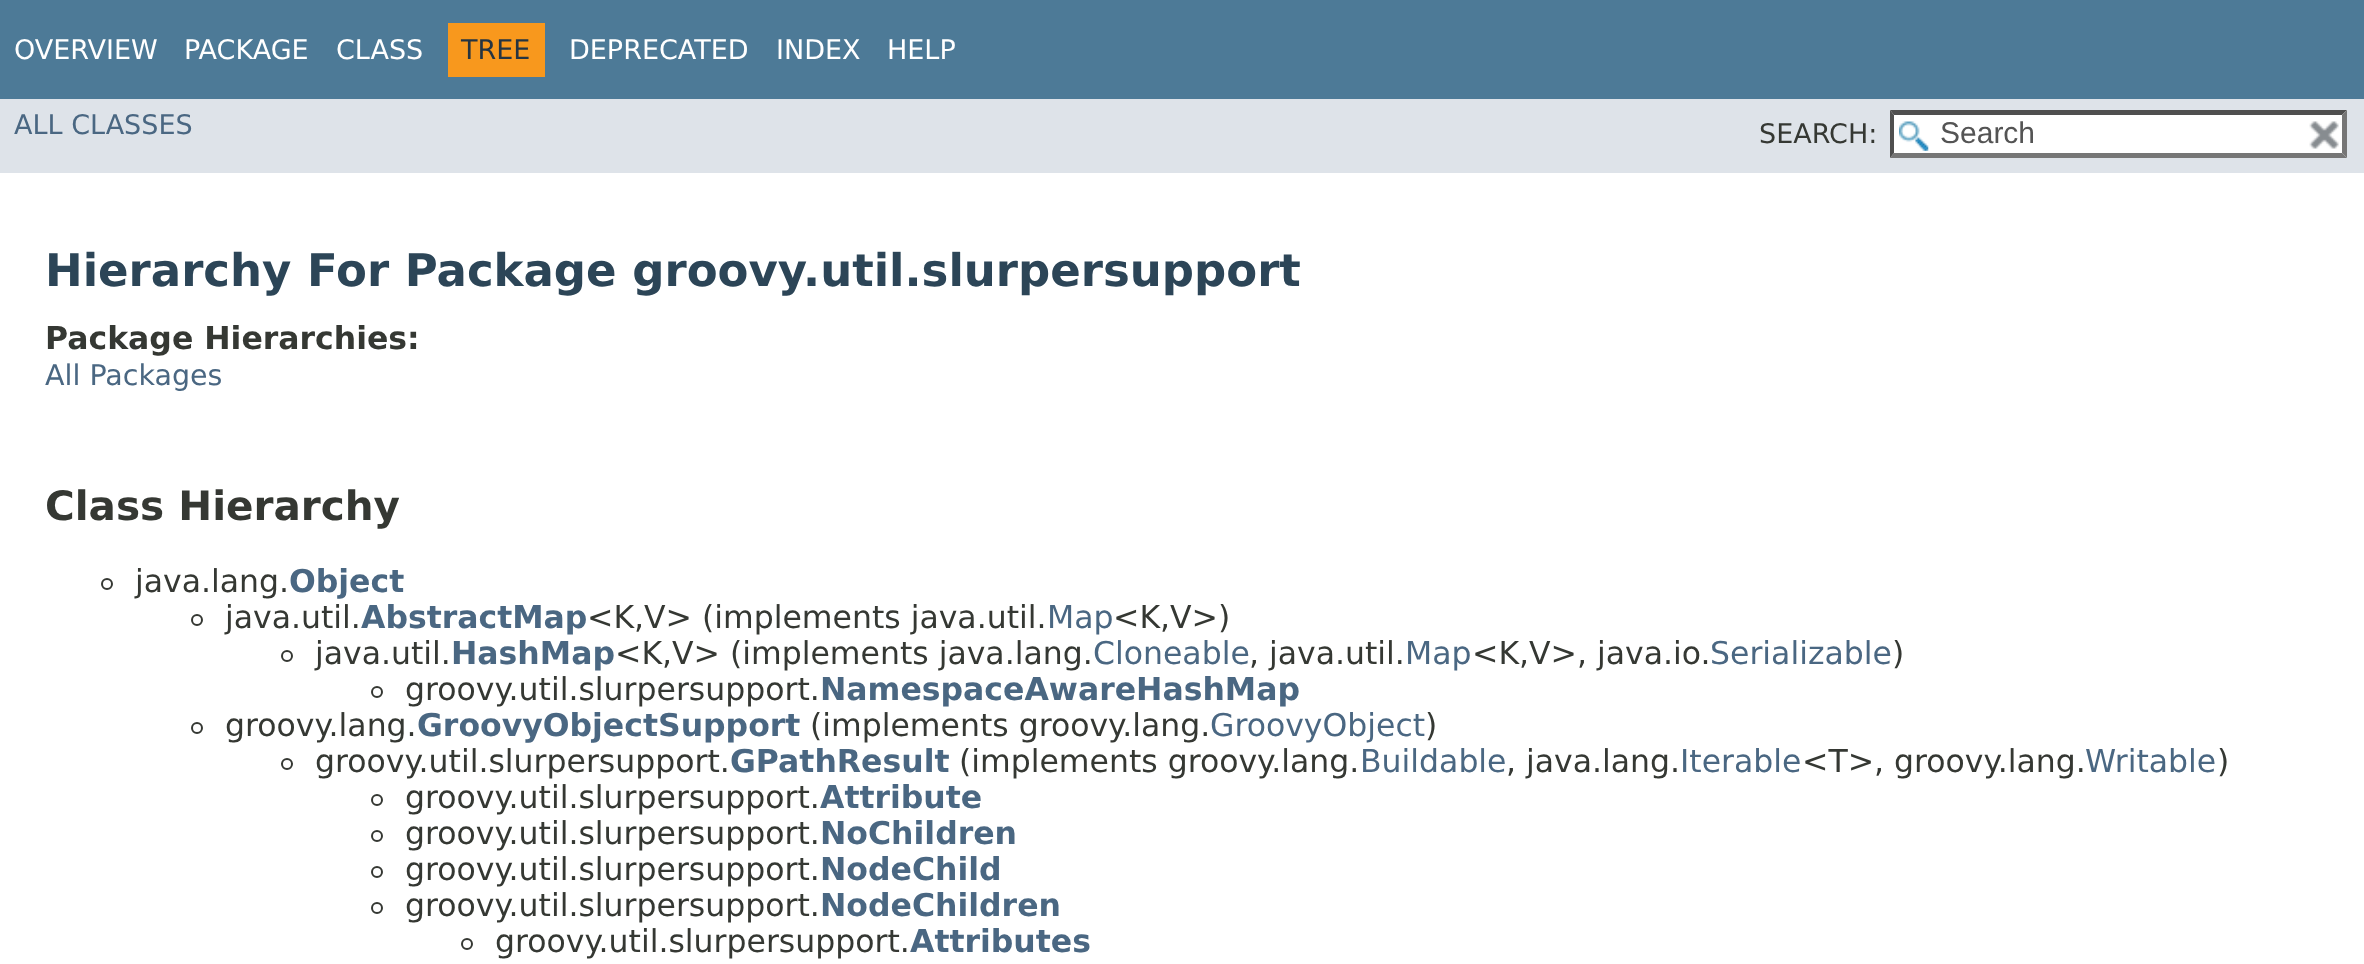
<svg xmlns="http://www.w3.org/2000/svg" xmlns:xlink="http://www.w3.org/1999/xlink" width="2364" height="964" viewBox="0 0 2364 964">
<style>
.cls-1{font:27px DejaVu Sans;fill:#ffffff}
.cls-2{font:27px DejaVu Sans;fill:#253441}
.cls-3{font:27px DejaVu Sans;fill:#4a6782}
.cls-4{font:27px DejaVu Sans;fill:#353833}
.cls-5{font:30px Liberation Sans;fill:#545454}
.cls-6{font:bold 45px DejaVu Sans;fill:#2c4557}
.cls-7{font:bold 31.5px DejaVu Sans;fill:#353833}
.cls-8{font:28.5px DejaVu Sans;fill:#4a6782}
.cls-9{font:bold 40.5px DejaVu Sans;fill:#353833}
.cls-10{font:31.5px DejaVu Sans;fill:#353833}
.cls-11{font:bold 31.5px DejaVu Sans;fill:#4a6782}
.cls-12{font:31.5px DejaVu Sans;fill:#4a6782}
</style>
<rect width="100%" height="100%" fill="#ffffff"/>
<rect fill="#4d7a97" x="0" y="0" width="2364" height="99"/>
<rect fill="#f8981d" x="448" y="23" width="97" height="54"/>
<rect fill="#dee3e9" x="0" y="99" width="2364" height="74"/>
<rect fill="#ffffff" x="1890" y="110" width="457" height="48"/>
<image xlink:href="image0.png" x="1899" y="121" width="30" height="30"/>
<path fill="#4f4f4f" d="M1890 110H2347L2342 115H1894Z"/>
<path fill="#767676" d="M2347 110V158L2342 153V115Z"/>
<path fill="#767676" d="M2347 158H1890L1894 153H2342Z"/>
<path fill="#4f4f4f" d="M1890 158V110L1894 115V153Z"/>
<image xlink:href="image1.png" x="2309" y="121" width="30" height="28"/>
<circle fill="none" stroke="#353833" stroke-width="2" cx="107" cy="584" r="5"/>
<circle fill="none" stroke="#353833" stroke-width="2" cx="197" cy="620" r="5"/>
<circle fill="none" stroke="#353833" stroke-width="2" cx="287" cy="656" r="5"/>
<circle fill="none" stroke="#353833" stroke-width="2" cx="377" cy="692" r="5"/>
<circle fill="none" stroke="#353833" stroke-width="2" cx="197" cy="728" r="5"/>
<circle fill="none" stroke="#353833" stroke-width="2" cx="287" cy="764" r="5"/>
<circle fill="none" stroke="#353833" stroke-width="2" cx="377" cy="800" r="5"/>
<circle fill="none" stroke="#353833" stroke-width="2" cx="377" cy="836" r="5"/>
<circle fill="none" stroke="#353833" stroke-width="2" cx="377" cy="872" r="5"/>
<circle fill="none" stroke="#353833" stroke-width="2" cx="377" cy="908" r="5"/>
<circle fill="none" stroke="#353833" stroke-width="2" cx="467" cy="944" r="5"/>
<text class="cls-1" x="14" y="59">OVERVIEW</text>
<text class="cls-1" x="184" y="59">PACKAGE</text>
<text class="cls-1" x="336" y="59">CLASS</text>
<text class="cls-2" x="461" y="59">TREE</text>
<text class="cls-1" x="569" y="59">DEPRECATED</text>
<text class="cls-1" x="776" y="59">INDEX</text>
<text class="cls-1" x="887" y="59">HELP</text>
<text class="cls-3" x="14" y="134">ALL CLASSES</text>
<text class="cls-4" x="1759" y="143">SEARCH:</text>
<text class="cls-5" x="1940" y="143">Search</text>
<text class="cls-6" x="45" y="286">Hierarchy For Package groovy.util.slurpersupport</text>
<text class="cls-7" x="45" y="349">Package Hierarchies:</text>
<text class="cls-8" x="45" y="385">All Packages</text>
<text class="cls-9" x="45" y="520">Class Hierarchy</text>
<text class="cls-10" x="135" y="592">java.lang.</text>
<text class="cls-11" x="289" y="592">Object</text>
<text class="cls-10" x="225" y="628">java.util.</text>
<text class="cls-11" x="361" y="628">AbstractMap</text>
<text class="cls-10" x="587" y="628">&lt;K,V&gt; (implements java.util.</text>
<text class="cls-12" x="1047" y="628">Map</text>
<text class="cls-10" x="1113" y="628">&lt;K,V&gt;)</text>
<text class="cls-10" x="315" y="664">java.util.</text>
<text class="cls-11" x="451" y="664">HashMap</text>
<text class="cls-10" x="615" y="664">&lt;K,V&gt; (implements java.lang.</text>
<text class="cls-12" x="1093" y="664">Cloneable</text>
<text class="cls-10" x="1249" y="664">, java.util.</text>
<text class="cls-12" x="1405" y="664">Map</text>
<text class="cls-10" x="1472" y="664">&lt;K,V&gt;, java.io.</text>
<text class="cls-12" x="1710" y="664">Serializable</text>
<text class="cls-10" x="1892" y="664">)</text>
<text class="cls-10" x="405" y="700">groovy.util.slurpersupport.</text>
<text class="cls-11" x="820" y="700">NamespaceAwareHashMap</text>
<text class="cls-10" x="225" y="736">groovy.lang.</text>
<text class="cls-11" x="417" y="736">GroovyObjectSupport</text>
<text class="cls-10" x="810" y="736">(implements groovy.lang.</text>
<text class="cls-12" x="1210" y="736">GroovyObject</text>
<text class="cls-10" x="1425" y="736">)</text>
<text class="cls-10" x="315" y="772">groovy.util.slurpersupport.</text>
<text class="cls-11" x="730" y="772">GPathResult</text>
<text class="cls-10" x="959" y="772">(implements groovy.lang.</text>
<text class="cls-12" x="1360" y="772">Buildable</text>
<text class="cls-10" x="1506" y="772">, java.lang.</text>
<text class="cls-12" x="1680" y="772">Iterable</text>
<text class="cls-10" x="1802" y="772">&lt;T&gt;, groovy.lang.</text>
<text class="cls-12" x="2085" y="772">Writable</text>
<text class="cls-10" x="2217" y="772">)</text>
<text class="cls-10" x="405" y="808">groovy.util.slurpersupport.</text>
<text class="cls-11" x="820" y="808">Attribute</text>
<text class="cls-10" x="405" y="844">groovy.util.slurpersupport.</text>
<text class="cls-11" x="820" y="844">NoChildren</text>
<text class="cls-10" x="405" y="880">groovy.util.slurpersupport.</text>
<text class="cls-11" x="820" y="880">NodeChild</text>
<text class="cls-10" x="405" y="916">groovy.util.slurpersupport.</text>
<text class="cls-11" x="820" y="916">NodeChildren</text>
<text class="cls-10" x="495" y="952">groovy.util.slurpersupport.</text>
<text class="cls-11" x="910" y="952">Attributes</text>
</svg>
